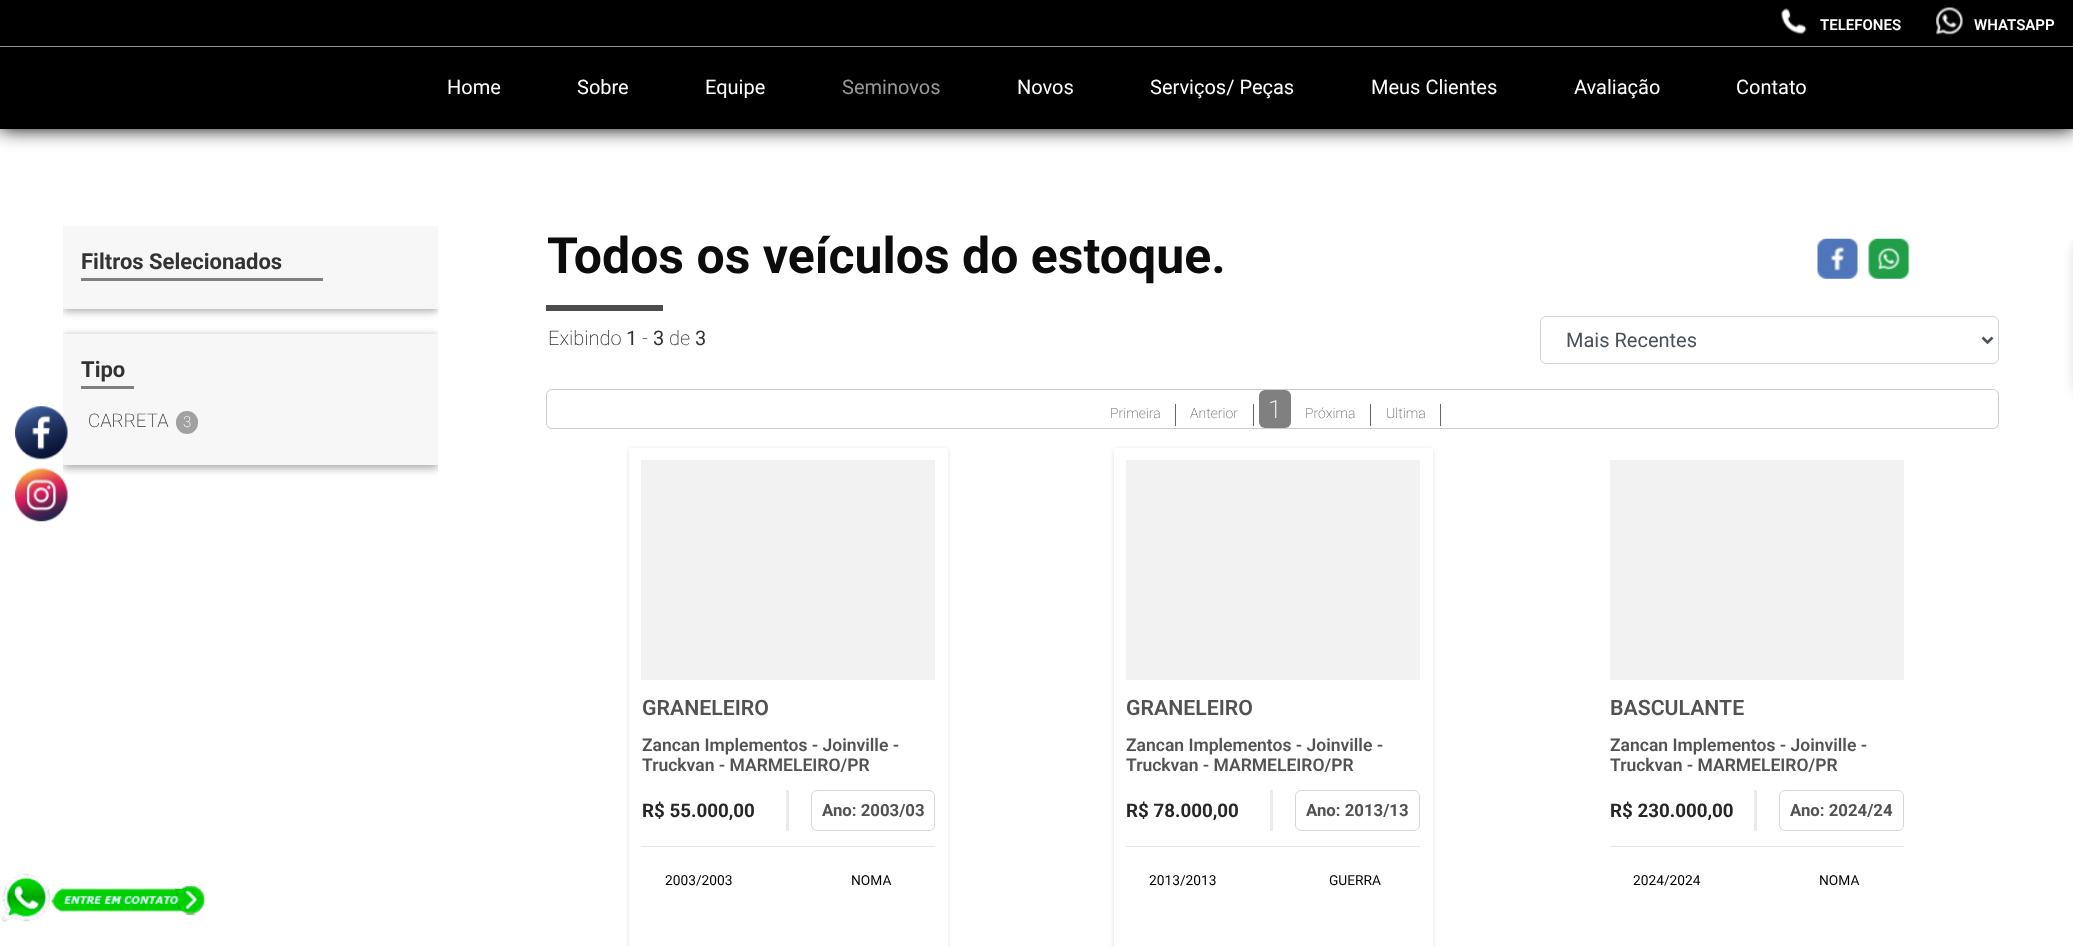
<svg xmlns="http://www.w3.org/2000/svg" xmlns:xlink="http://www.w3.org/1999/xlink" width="2073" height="947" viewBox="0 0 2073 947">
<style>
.cls-1{font:600 15px Roboto;fill:#ffffff}
.cls-2{font:20px Roboto;fill:#ffffff}
.cls-3{font:20px Roboto;fill:#999999}
.cls-4{font:bold 22px Roboto;fill:#333333}
.cls-5{font:200 18.75px Roboto;fill:#333333}
.cls-6{font:200 15px Roboto;fill:#ffffff}
.cls-7{font:bold 50px Roboto;fill:#0c0c0c}
.cls-8{font:200 20px Roboto;fill:#333333}
.cls-9{font:20px Roboto;fill:#333333}
.cls-10{font:20px Roboto;fill:#495057}
.cls-11{font:200 14px Roboto;fill:#666666}
.cls-12{font:200 25px Roboto;fill:#ffffff}
.cls-13{font:600 21.25px Roboto;fill:#535252}
.cls-14{font:600 17.5px Roboto;fill:#535252}
.cls-15{font:bold 18.75px Roboto;fill:#262626}
.cls-16{font:bold 16.75px Roboto;fill:#535252}
.cls-17{font:13.75px Roboto;fill:#000000}
</style>
<defs>
<clipPath id="clip1"><rect x="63" y="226" width="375" height="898"/></clipPath>
</defs>
<rect width="100%" height="100%" fill="#ffffff"/>
<rect fill="#000000" filter="blur(9.5px)" x="0" y="0" width="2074" height="129"/>
<rect fill="#000000" x="0" y="0" width="2073" height="129"/>
<rect fill="#959595" x="0" y="46" width="2073" height="1"/>
<image xlink:href="image0.png" x="1781" y="8" width="26" height="27"/>
<image xlink:href="image1.png" x="1936" y="7" width="27" height="28"/>
<g clip-path="url(#clip1)">
<rect fill="#000000" fill-opacity="0.35" filter="blur(4px)" x="63" y="336" width="375" height="132"/>
</g>
<rect fill="#f7f7f7" x="63" y="334" width="375" height="131"/>
<image xlink:href="image2.png" x="15" y="406" width="53" height="54"/>
<image xlink:href="image3.png" x="15" y="468" width="53" height="54"/>
<g clip-path="url(#clip1)">
<rect fill="#000000" fill-opacity="0.35" filter="blur(4px)" x="63" y="229" width="375" height="82"/>
</g>
<rect fill="#f7f7f7" x="63" y="226" width="375" height="83"/>
<rect fill="#808080" x="81" y="278" width="242" height="3"/>
<rect fill="#808080" x="81" y="386" width="53" height="3"/>
<rect fill="#a1a1a1" x="176" y="411" width="22" height="23" rx="11"/>
<image xlink:href="image4.png" x="1817" y="238" width="41" height="41"/>
<image xlink:href="image5.png" x="1868" y="238" width="42" height="41"/>
<rect fill="#4c4c4c" x="546" y="305" width="117" height="6"/>
<rect fill="none" stroke="#ced4da" x="1540.5" y="316.5" width="458" height="47" rx="5.5"/>
<path fill="none" stroke="#495057" stroke-width="2.5" d="M1982.5 337.5L1987.5 342.5L1992.5 337.5"/>
<rect fill="none" stroke="#cccccc" x="546.5" y="389.5" width="1452" height="39" rx="5.5"/>
<rect fill="#666666" x="1175" y="404" width="1" height="22"/>
<rect fill="#666666" x="1253" y="404" width="1" height="22"/>
<rect fill="#808080" x="1259" y="390" width="32" height="38" rx="6"/>
<rect fill="#666666" x="1370" y="404" width="1" height="22"/>
<rect fill="#666666" x="1440" y="404" width="1" height="22"/>
<rect fill="#000000" fill-opacity="0.12" filter="blur(2px)" x="629" y="449" width="319" height="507" rx="2.5"/>
<rect fill="#ffffff" x="629" y="448" width="319" height="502" rx="2.5"/>
<rect fill="#f2f2f2" x="641" y="460" width="294" height="220"/>
<rect fill="#ecebeb" x="786" y="790" width="3" height="41"/>
<rect fill="none" stroke="#d7d7d7" x="811.5" y="790.5" width="123" height="40" rx="5.5"/>
<rect fill="#e6e6e6" x="641" y="846" width="294" height="1"/>
<rect fill="#000000" fill-opacity="0.12" filter="blur(2px)" x="1114" y="449" width="319" height="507" rx="2.5"/>
<rect fill="#ffffff" x="1114" y="448" width="319" height="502" rx="2.5"/>
<rect fill="#f2f2f2" x="1126" y="460" width="294" height="220"/>
<rect fill="#ecebeb" x="1270" y="790" width="3" height="41"/>
<rect fill="none" stroke="#d7d7d7" x="1295.5" y="790.5" width="124" height="40" rx="5.5"/>
<rect fill="#e6e6e6" x="1126" y="846" width="294" height="1"/>
<rect fill="#f2f2f2" x="1610" y="460" width="294" height="220"/>
<rect fill="#ecebeb" x="1754" y="790" width="3" height="41"/>
<rect fill="none" stroke="#d7d7d7" x="1779.5" y="790.5" width="124" height="40" rx="5.5"/>
<rect fill="#e6e6e6" x="1610" y="846" width="294" height="1"/>
<rect fill="#000000" fill-opacity="0.15" filter="blur(6px)" x="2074" y="240" width="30" height="156" rx="13"/>
<image xlink:href="image6.png" x="1" y="873" width="205" height="49"/>
<text class="cls-1" x="1820" y="30">TELEFONES</text>
<text class="cls-1" x="1974" y="30">WHATSAPP</text>
<text class="cls-2" x="447" y="94">Home</text>
<text class="cls-2" x="577" y="94">Sobre</text>
<text class="cls-2" x="705" y="94">Equipe</text>
<text class="cls-3" x="842" y="94">Seminovos</text>
<text class="cls-2" x="1017" y="94">Novos</text>
<text class="cls-2" x="1150" y="94">Serviços/ Peças</text>
<text class="cls-2" x="1371" y="94">Meus Clientes</text>
<text class="cls-2" x="1574" y="94">Avaliação</text>
<text class="cls-2" x="1736" y="94">Contato</text>
<text class="cls-4" x="81" y="269">Filtros Selecionados</text>
<text class="cls-4" x="81" y="377">Tipo</text>
<text class="cls-5" x="88" y="427">CARRETA</text>
<text class="cls-6" x="183" y="427">3</text>
<text class="cls-7" x="547" y="273">Todos os veículos do estoque.</text>
<text class="cls-8" x="548" y="345">Exibindo</text>
<text class="cls-9" x="626" y="345">1</text>
<text class="cls-8" x="642" y="345">-</text>
<text class="cls-9" x="653" y="345">3</text>
<text class="cls-8" x="669" y="345">de</text>
<text class="cls-9" x="695" y="345">3</text>
<text class="cls-10" x="1566" y="347">Mais Recentes</text>
<text class="cls-11" x="1110" y="418">Primeira</text>
<text class="cls-11" x="1190" y="418">Anterior</text>
<text class="cls-12" x="1268" y="418">1</text>
<text class="cls-11" x="1305" y="418">Próxima</text>
<text class="cls-11" x="1386" y="418">Ultima</text>
<text class="cls-13" x="642" y="715">GRANELEIRO</text>
<text class="cls-14"><tspan x="642" y="751">Zancan Implementos - Joinville -</tspan><tspan x="642" y="771">Truckvan - MARMELEIRO/PR</tspan></text>
<text class="cls-15" x="642" y="817">R$ 55.000,00</text>
<text class="cls-16" x="822" y="816">Ano: 2003/03</text>
<text class="cls-17" x="665" y="885">2003/2003</text>
<text class="cls-17" x="851" y="885">NOMA</text>
<text class="cls-13" x="1126" y="715">GRANELEIRO</text>
<text class="cls-14"><tspan x="1126" y="751">Zancan Implementos - Joinville -</tspan><tspan x="1126" y="771">Truckvan - MARMELEIRO/PR</tspan></text>
<text class="cls-15" x="1126" y="817">R$ 78.000,00</text>
<text class="cls-16" x="1306" y="816">Ano: 2013/13</text>
<text class="cls-17" x="1149" y="885">2013/2013</text>
<text class="cls-17" x="1329" y="885">GUERRA</text>
<text class="cls-13" x="1610" y="715">BASCULANTE</text>
<text class="cls-14"><tspan x="1610" y="751">Zancan Implementos - Joinville -</tspan><tspan x="1610" y="771">Truckvan - MARMELEIRO/PR</tspan></text>
<text class="cls-15" x="1610" y="817">R$ 230.000,00</text>
<text class="cls-16" x="1790" y="816">Ano: 2024/24</text>
<text class="cls-17" x="1633" y="885">2024/2024</text>
<text class="cls-17" x="1819" y="885">NOMA</text>
</svg>
